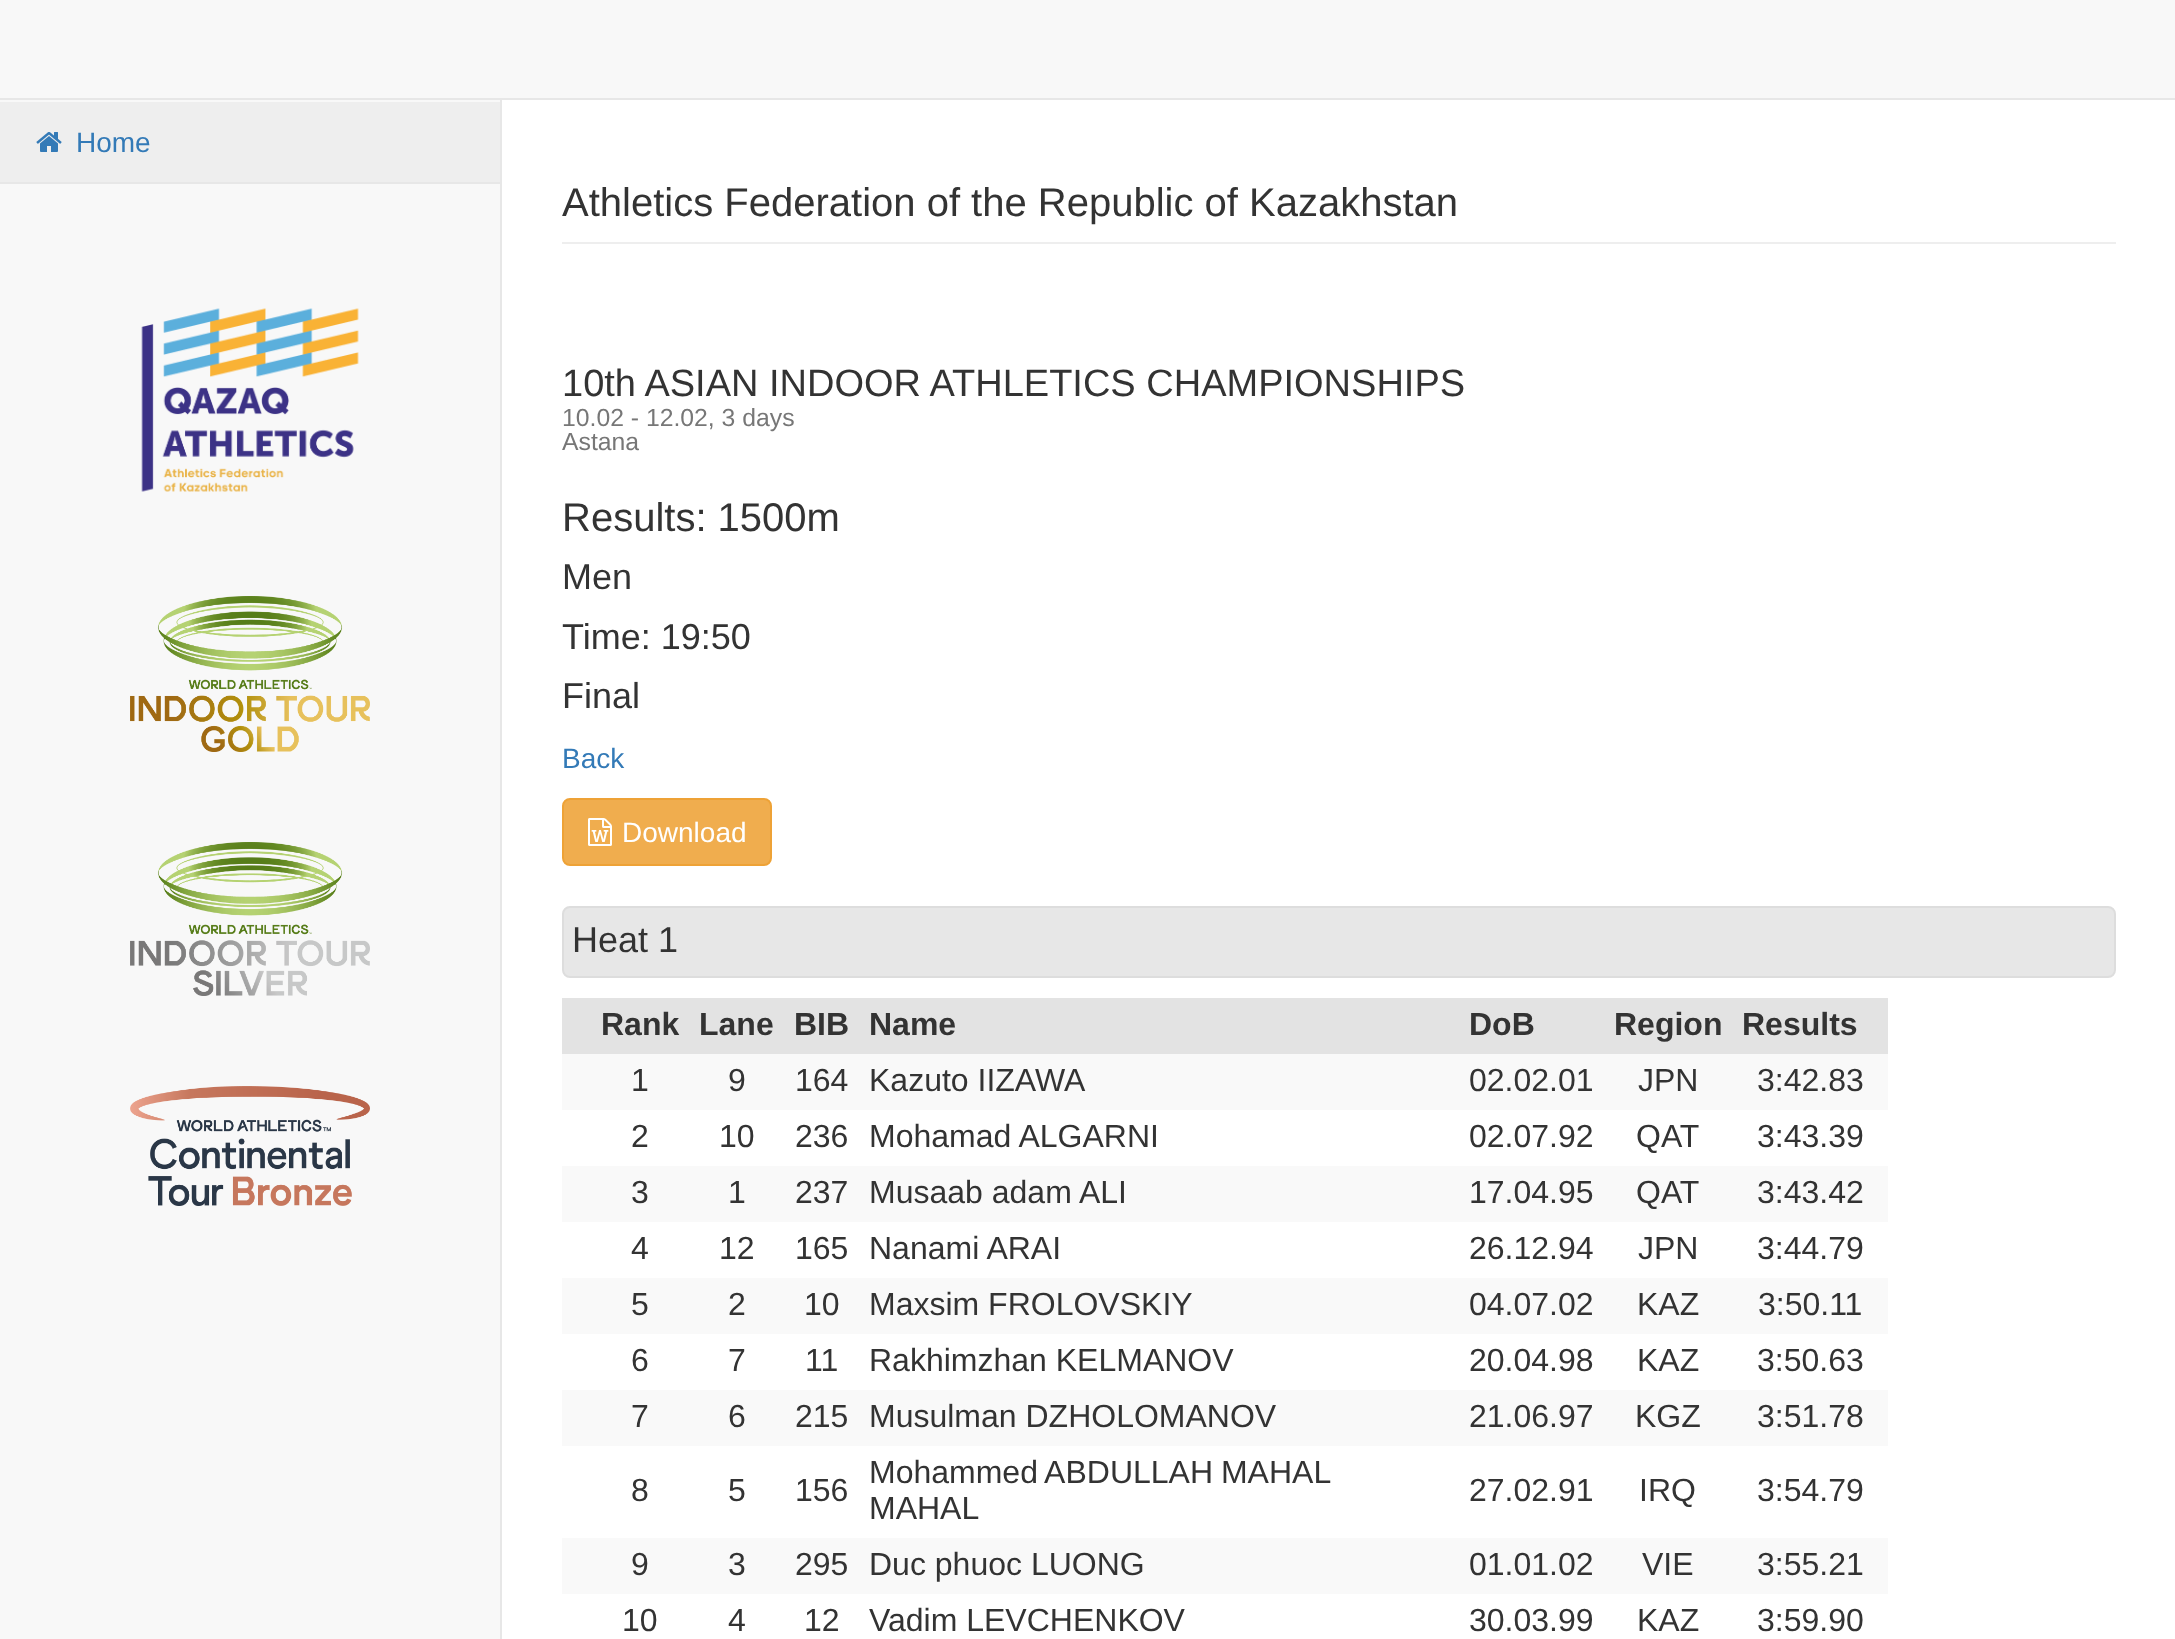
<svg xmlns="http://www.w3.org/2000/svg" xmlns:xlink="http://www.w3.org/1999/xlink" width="2175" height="1639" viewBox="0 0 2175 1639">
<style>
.cls-1{font:28px Liberation Sans;fill:#337ab7}
.cls-2{font:40px Liberation Sans;fill:#333333}
.cls-3{font:38px Liberation Sans;fill:#333333}
.cls-4{font:24.75px Liberation Sans;fill:#777777}
.cls-5{font:36px Liberation Sans;fill:#333333}
.cls-6{font:28px Liberation Sans;fill:#ffffff}
.cls-7{font:bold 32px Liberation Sans;fill:#333333}
.cls-8{font:32px Liberation Sans;fill:#333333}
</style>
<rect width="100%" height="100%" fill="#f8f8f8"/>
<rect fill="#e7e7e7" x="0" y="98" width="2175" height="2"/>
<rect fill="#e7e7e7" x="0" y="182" width="500" height="2"/>
<rect fill="#eeeeee" x="0" y="102" width="500" height="80"/>
<image xlink:href="image0.png" x="36" y="132" width="26" height="20"/>
<image xlink:href="image1.png" x="141" y="308" width="218" height="184"/>
<image xlink:href="image2.png" x="130" y="596" width="240" height="156"/>
<image xlink:href="image3.png" x="130" y="842" width="240" height="154"/>
<image xlink:href="image4.png" x="130" y="1086" width="240" height="120"/>
<rect fill="#ffffff" x="502" y="100" width="1673" height="1539"/>
<rect fill="#e7e7e7" x="500" y="100" width="2" height="1539"/>
<rect fill="#eeeeee" x="562" y="242" width="1554" height="2"/>
<rect fill="#f0ad4e" stroke="#eea236" stroke-width="2" x="563" y="799" width="208" height="66" rx="7"/>
<image xlink:href="image5.png" x="588" y="818" width="24" height="28"/>
<rect fill="#e7e7e7" stroke="#dddddd" stroke-width="2" x="563" y="907" width="1552" height="70" rx="7"/>
<rect fill="#e3e3e3" x="562" y="998" width="1326" height="56"/>
<rect fill="#f9f9f9" x="562" y="1054" width="1326" height="56"/>
<rect fill="#f9f9f9" x="562" y="1166" width="1326" height="56"/>
<rect fill="#f9f9f9" x="562" y="1278" width="1326" height="56"/>
<rect fill="#f9f9f9" x="562" y="1390" width="1326" height="56"/>
<rect fill="#f9f9f9" x="562" y="1538" width="1326" height="56"/>
<text class="cls-1" x="76" y="152">Home</text>
<text class="cls-2" x="562" y="216">Athletics Federation of the Republic of Kazakhstan</text>
<text class="cls-3" x="562" y="396">10th ASIAN INDOOR ATHLETICS CHAMPIONSHIPS</text>
<text class="cls-4"><tspan x="562" y="426">10.02 - 12.02, 3 days</tspan><tspan x="562" y="450">Astana</tspan></text>
<text class="cls-2" x="562" y="531">Results: 1500m</text>
<text class="cls-5"><tspan x="562" y="589">Men</tspan><tspan x="562" y="649">Time: 19:50</tspan><tspan x="562" y="708">Final</tspan></text>
<text class="cls-1" x="562" y="768">Back</text>
<text class="cls-6" x="622" y="842">Download</text>
<text class="cls-5" x="572" y="952">Heat 1</text>
<text class="cls-7" x="601" y="1035">Rank</text>
<text class="cls-7" x="699" y="1035">Lane</text>
<text class="cls-7" x="794" y="1035">BIB</text>
<text class="cls-7" x="869" y="1035">Name</text>
<text class="cls-7" x="1469" y="1035">DoB</text>
<text class="cls-7" x="1614" y="1035">Region</text>
<text class="cls-7" x="1742" y="1035">Results</text>
<text class="cls-8" x="631" y="1091">1</text>
<text class="cls-8" x="728" y="1091">9</text>
<text class="cls-8" x="795" y="1091">164</text>
<text class="cls-8" x="869" y="1091">Kazuto IIZAWA</text>
<text class="cls-8" x="1469" y="1091">02.02.01</text>
<text class="cls-8" x="1638" y="1091">JPN</text>
<text class="cls-8" x="1757" y="1091">3:42.83</text>
<text class="cls-8" x="631" y="1147">2</text>
<text class="cls-8" x="719" y="1147">10</text>
<text class="cls-8" x="795" y="1147">236</text>
<text class="cls-8" x="869" y="1147">Mohamad ALGARNI</text>
<text class="cls-8" x="1469" y="1147">02.07.92</text>
<text class="cls-8" x="1636" y="1147">QAT</text>
<text class="cls-8" x="1757" y="1147">3:43.39</text>
<text class="cls-8" x="631" y="1203">3</text>
<text class="cls-8" x="728" y="1203">1</text>
<text class="cls-8" x="795" y="1203">237</text>
<text class="cls-8" x="869" y="1203">Musaab adam ALI</text>
<text class="cls-8" x="1469" y="1203">17.04.95</text>
<text class="cls-8" x="1636" y="1203">QAT</text>
<text class="cls-8" x="1757" y="1203">3:43.42</text>
<text class="cls-8" x="631" y="1259">4</text>
<text class="cls-8" x="719" y="1259">12</text>
<text class="cls-8" x="795" y="1259">165</text>
<text class="cls-8" x="869" y="1259">Nanami ARAI</text>
<text class="cls-8" x="1469" y="1259">26.12.94</text>
<text class="cls-8" x="1638" y="1259">JPN</text>
<text class="cls-8" x="1757" y="1259">3:44.79</text>
<text class="cls-8" x="631" y="1315">5</text>
<text class="cls-8" x="728" y="1315">2</text>
<text class="cls-8" x="804" y="1315">10</text>
<text class="cls-8" x="869" y="1315">Maxsim FROLOVSKIY</text>
<text class="cls-8" x="1469" y="1315">04.07.02</text>
<text class="cls-8" x="1637" y="1315">KAZ</text>
<text class="cls-8" x="1758" y="1315">3:50.11</text>
<text class="cls-8" x="631" y="1371">6</text>
<text class="cls-8" x="728" y="1371">7</text>
<text class="cls-8" x="805" y="1371">11</text>
<text class="cls-8" x="869" y="1371">Rakhimzhan KELMANOV</text>
<text class="cls-8" x="1469" y="1371">20.04.98</text>
<text class="cls-8" x="1637" y="1371">KAZ</text>
<text class="cls-8" x="1757" y="1371">3:50.63</text>
<text class="cls-8" x="631" y="1427">7</text>
<text class="cls-8" x="728" y="1427">6</text>
<text class="cls-8" x="795" y="1427">215</text>
<text class="cls-8" x="869" y="1427">Musulman DZHOLOMANOV</text>
<text class="cls-8" x="1469" y="1427">21.06.97</text>
<text class="cls-8" x="1635" y="1427">KGZ</text>
<text class="cls-8" x="1757" y="1427">3:51.78</text>
<text class="cls-8" x="631" y="1501">8</text>
<text class="cls-8" x="728" y="1501">5</text>
<text class="cls-8" x="795" y="1501">156</text>
<text class="cls-8"><tspan x="869" y="1483" word-spacing="-1">Mohammed ABDULLAH MAHAL</tspan><tspan x="869" y="1519">MAHAL</tspan></text>
<text class="cls-8" x="1469" y="1501">27.02.91</text>
<text class="cls-8" x="1639" y="1501">IRQ</text>
<text class="cls-8" x="1757" y="1501">3:54.79</text>
<text class="cls-8" x="631" y="1575">9</text>
<text class="cls-8" x="728" y="1575">3</text>
<text class="cls-8" x="795" y="1575">295</text>
<text class="cls-8" x="869" y="1575">Duc phuoc LUONG</text>
<text class="cls-8" x="1469" y="1575">01.01.02</text>
<text class="cls-8" x="1642" y="1575">VIE</text>
<text class="cls-8" x="1757" y="1575">3:55.21</text>
<text class="cls-8" x="622" y="1631">10</text>
<text class="cls-8" x="728" y="1631">4</text>
<text class="cls-8" x="804" y="1631">12</text>
<text class="cls-8" x="869" y="1631">Vadim LEVCHENKOV</text>
<text class="cls-8" x="1469" y="1631">30.03.99</text>
<text class="cls-8" x="1637" y="1631">KAZ</text>
<text class="cls-8" x="1757" y="1631">3:59.90</text>
</svg>
